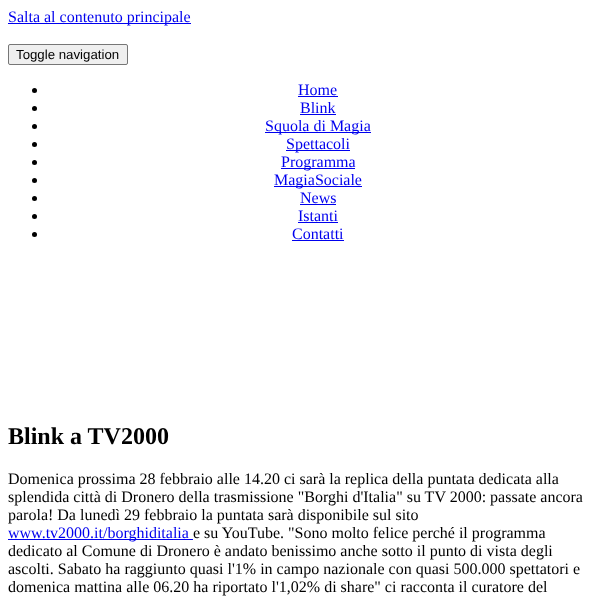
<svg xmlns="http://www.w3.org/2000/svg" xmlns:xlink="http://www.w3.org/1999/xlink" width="596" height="605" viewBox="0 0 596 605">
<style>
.cls-1{font:16px Liberation Serif;fill:#0000ee}
.cls-2{font:13.25px Liberation Sans;fill:#000000}
.cls-3{font:bold 24px Liberation Serif;fill:#000000}
.cls-4{font:16px Liberation Serif;fill:#000000}
</style>
<rect width="100%" height="100%" fill="#ffffff"/>
<rect fill="#0000ee" x="8" y="23" width="183" height="1"/>
<rect fill="#efefef" stroke="#767676" x="8.5" y="44.5" width="119" height="20" rx="1.5"/>
<circle fill="#000000" cx="34.5" cy="90.5" r="2.5"/>
<rect fill="#0000ee" x="298" y="96" width="40" height="1"/>
<circle fill="#000000" cx="34.5" cy="108.5" r="2.5"/>
<rect fill="#0000ee" x="300" y="114" width="36" height="1"/>
<circle fill="#000000" cx="34.5" cy="126.5" r="2.5"/>
<rect fill="#0000ee" x="265" y="132" width="106" height="1"/>
<circle fill="#000000" cx="34.5" cy="144.5" r="2.5"/>
<rect fill="#0000ee" x="286" y="150" width="64" height="1"/>
<circle fill="#000000" cx="34.5" cy="162.5" r="2.5"/>
<rect fill="#0000ee" x="281" y="168" width="74" height="1"/>
<circle fill="#000000" cx="34.5" cy="180.5" r="2.5"/>
<rect fill="#0000ee" x="274" y="186" width="88" height="1"/>
<circle fill="#000000" cx="34.5" cy="198.5" r="2.5"/>
<rect fill="#0000ee" x="300" y="204" width="36" height="1"/>
<circle fill="#000000" cx="34.5" cy="216.5" r="2.5"/>
<rect fill="#0000ee" x="298" y="222" width="40" height="1"/>
<circle fill="#000000" cx="34.5" cy="234.5" r="2.5"/>
<rect fill="#0000ee" x="292" y="240" width="52" height="1"/>
<rect fill="#0000ee" x="8" y="539" width="185" height="1"/>
<text class="cls-1" x="8" y="22">Salta al contenuto principale</text>
<text class="cls-2" x="16" y="59">Toggle navigation</text>
<text class="cls-1" x="298" y="95">Home</text>
<text class="cls-1" x="300" y="113">Blink</text>
<text class="cls-1" x="265" y="131">Squola di Magia</text>
<text class="cls-1" x="286" y="149">Spettacoli</text>
<text class="cls-1" x="281" y="167">Programma</text>
<text class="cls-1" x="274" y="185">MagiaSociale</text>
<text class="cls-1" x="300" y="203">News</text>
<text class="cls-1" x="298" y="221">Istanti</text>
<text class="cls-1" x="292" y="239">Contatti</text>
<text class="cls-3" x="8" y="444">Blink a TV2000</text>
<text class="cls-4"><tspan x="8" y="484">Domenica prossima 28 febbraio alle 14.20 ci sarà la replica della puntata dedicata alla</tspan><tspan x="8" y="502">splendida città di Dronero della trasmissione "Borghi d'Italia" su TV 2000: passate ancora</tspan><tspan x="8" y="520">parola! Da lunedì 29 febbraio la puntata sarà disponibile sul sito</tspan></text>
<text class="cls-1" x="8" y="538">www.tv2000.it/borghiditalia</text>
<text class="cls-4" x="193" y="538">e su YouTube. "Sono molto felice perché il programma</text>
<text class="cls-4"><tspan x="8" y="556">dedicato al Comune di Dronero è andato benissimo anche sotto il punto di vista degli</tspan><tspan x="8" y="574">ascolti. Sabato ha raggiunto quasi l'1% in campo nazionale con quasi 500.000 spettatori e</tspan><tspan x="8" y="592">domenica mattina alle 06.20 ha riportato l'1,02% di share" ci racconta il curatore del</tspan></text>
</svg>
